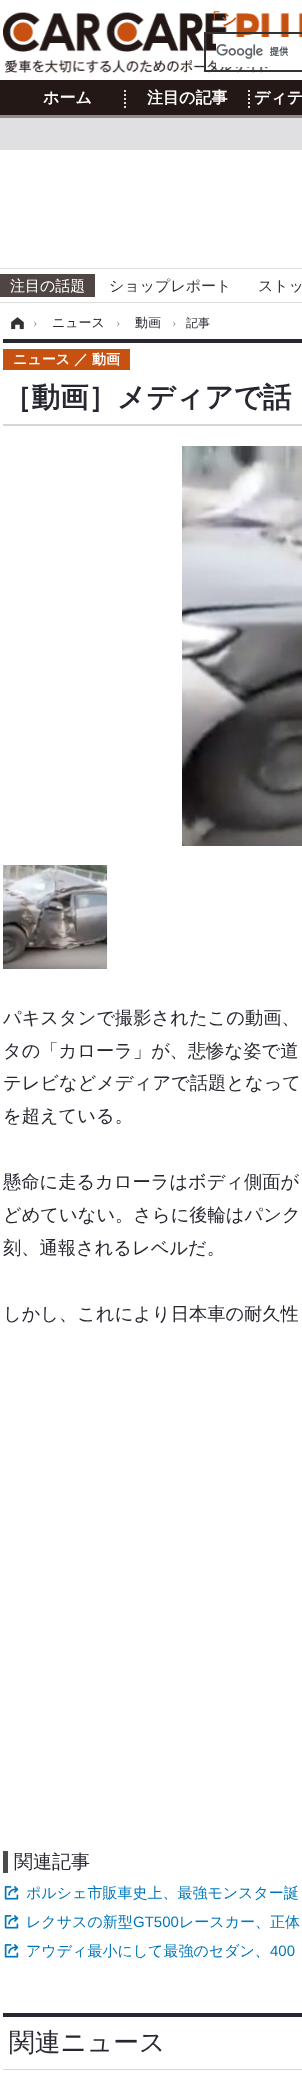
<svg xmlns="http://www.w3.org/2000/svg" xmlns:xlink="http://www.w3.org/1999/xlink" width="302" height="2075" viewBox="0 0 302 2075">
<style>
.cls-1{font:bold 16.5px WenQuanYi Zen Hei;fill:#c75111}
.cls-2{font:bold 16px WenQuanYi Zen Hei;fill:#ffffff}
.cls-3{font:500 15px WenQuanYi Zen Hei;fill:#ffffff}
.cls-4{font:500 15px WenQuanYi Zen Hei;fill:#333333}
.cls-5{font:13px Liberation Serif;fill:#999999}
.cls-6{font:500 13px WenQuanYi Zen Hei;fill:#262730}
.cls-7{font:500 12px WenQuanYi Zen Hei;fill:#262730}
.cls-8{font:bold 14px WenQuanYi Zen Hei;fill:#ffffff}
.cls-9{font:bold 28.5px WenQuanYi Zen Hei;fill:#262730}
.cls-10{font:500 18.25px WenQuanYi Zen Hei;fill:#262730}
.cls-11{font:500 19px WenQuanYi Zen Hei;fill:#262730}
.cls-12{font:500 15px WenQuanYi Zen Hei;fill:#0077b9}
.cls-13{font:15px Liberation Sans;fill:#0077b9}
.cls-14{font:500 25.75px WenQuanYi Zen Hei;fill:#262730}
</style>
<rect width="100%" height="100%" fill="#ffffff"/>
<image xlink:href="image1.png" x="3" y="12" width="299" height="61"/>
<rect fill="none" stroke="#333333" stroke-width="2" x="205" y="33" width="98" height="38"/>
<rect fill="#ffffff" x="216" y="37" width="86" height="30"/>
<image xlink:href="image0.png" x="216" y="44" width="73" height="15"/>
<image xlink:href="image2.png" x="0" y="80" width="302" height="70"/>
<path fill="none" stroke="#e0e0e2" stroke-width="2" stroke-dasharray="2 2" d="M125 90V108"/>
<path fill="none" stroke="#e0e0e2" stroke-width="2" stroke-dasharray="2 2" d="M249 90V108"/>
<rect fill="#dddddd" x="0" y="268" width="302" height="1"/>
<rect fill="#dddddd" x="0" y="302" width="302" height="1"/>
<rect fill="#4f4644" x="0" y="274" width="95" height="23"/>
<image xlink:href="image3.png" x="11" y="317" width="13" height="13"/>
<rect fill="#262730" x="3" y="339" width="299" height="4"/>
<rect fill="#d6d6d6" x="3" y="424" width="299" height="2"/>
<rect fill="#c75111" x="3" y="349" width="127" height="21"/>
<image xlink:href="image4.png" x="182" y="446" width="120" height="400"/>
<image xlink:href="image5.png" x="3" y="865" width="105" height="104"/>
<rect fill="#4c4c4c" x="3" y="1851" width="5" height="22"/>
<image xlink:href="image6.png" x="4" y="1886" width="15" height="14"/>
<image xlink:href="image6.png" x="4" y="1915" width="15" height="14"/>
<image xlink:href="image6.png" x="4" y="1944" width="15" height="14"/>
<rect fill="#262730" x="3" y="2013" width="299" height="4"/>
<rect fill="#d6d6d6" x="3" y="2069" width="299" height="1"/>
<text class="cls-1" x="204" y="25">「シ</text>
<text class="cls-2" x="43" y="103">ホーム</text>
<text class="cls-2" x="147" y="103">注目の記事</text>
<text class="cls-2" x="254" y="103">ディテ</text>
<text class="cls-3" x="10" y="291">注目の話題</text>
<text class="cls-4" x="109" y="291">ショップレポート</text>
<text class="cls-4" x="258" y="291">ストッ</text>
<text class="cls-5" x="33" y="327">›</text>
<text class="cls-6" x="52" y="327">ニュース</text>
<text class="cls-5" x="116" y="327">›</text>
<text class="cls-6" x="135" y="327">動画</text>
<text class="cls-5" x="172" y="327">›</text>
<text class="cls-7" x="186" y="327">記事</text>
<text class="cls-8" x="13" y="364">ニュース</text>
<text class="cls-8" x="74" y="364">／</text>
<text class="cls-8" x="92" y="364">動画</text>
<text class="cls-9" x="3" y="407">［動画］メディアで話</text>
<text class="cls-10"><tspan x="3" y="1024">パキスタンで撮影されたこの動画、</tspan><tspan x="3" y="1057">タの「カローラ」が、悲惨な姿で道</tspan><tspan x="3" y="1089">テレビなどメディアで話題となって</tspan><tspan x="3" y="1122">を超えている。</tspan></text>
<text class="cls-10"><tspan x="3" y="1188">懸命に走るカローラはボディ側面が</tspan><tspan x="3" y="1221">どめていない。さらに後輪はパンク</tspan><tspan x="3" y="1254">刻、通報されるレベルだ。</tspan></text>
<text class="cls-10" x="3" y="1320">しかし、これにより日本車の耐久性</text>
<text class="cls-11" x="14" y="1868">関連記事</text>
<text class="cls-12"><tspan x="26" y="1898">ポルシェ市販車史上、最強モンスター誕</tspan><tspan x="26" y="1927">レクサスの新型</tspan></text>
<text class="cls-13" x="133" y="1927">GT500</text>
<text class="cls-12" x="179" y="1927">レースカー、正体</text>
<text class="cls-12" x="26" y="1956">アウディ最小にして最強のセダン、</text>
<text class="cls-13" x="270" y="1956">400</text>
<text class="cls-14" x="9" y="2051">関連ニュース</text>
</svg>
